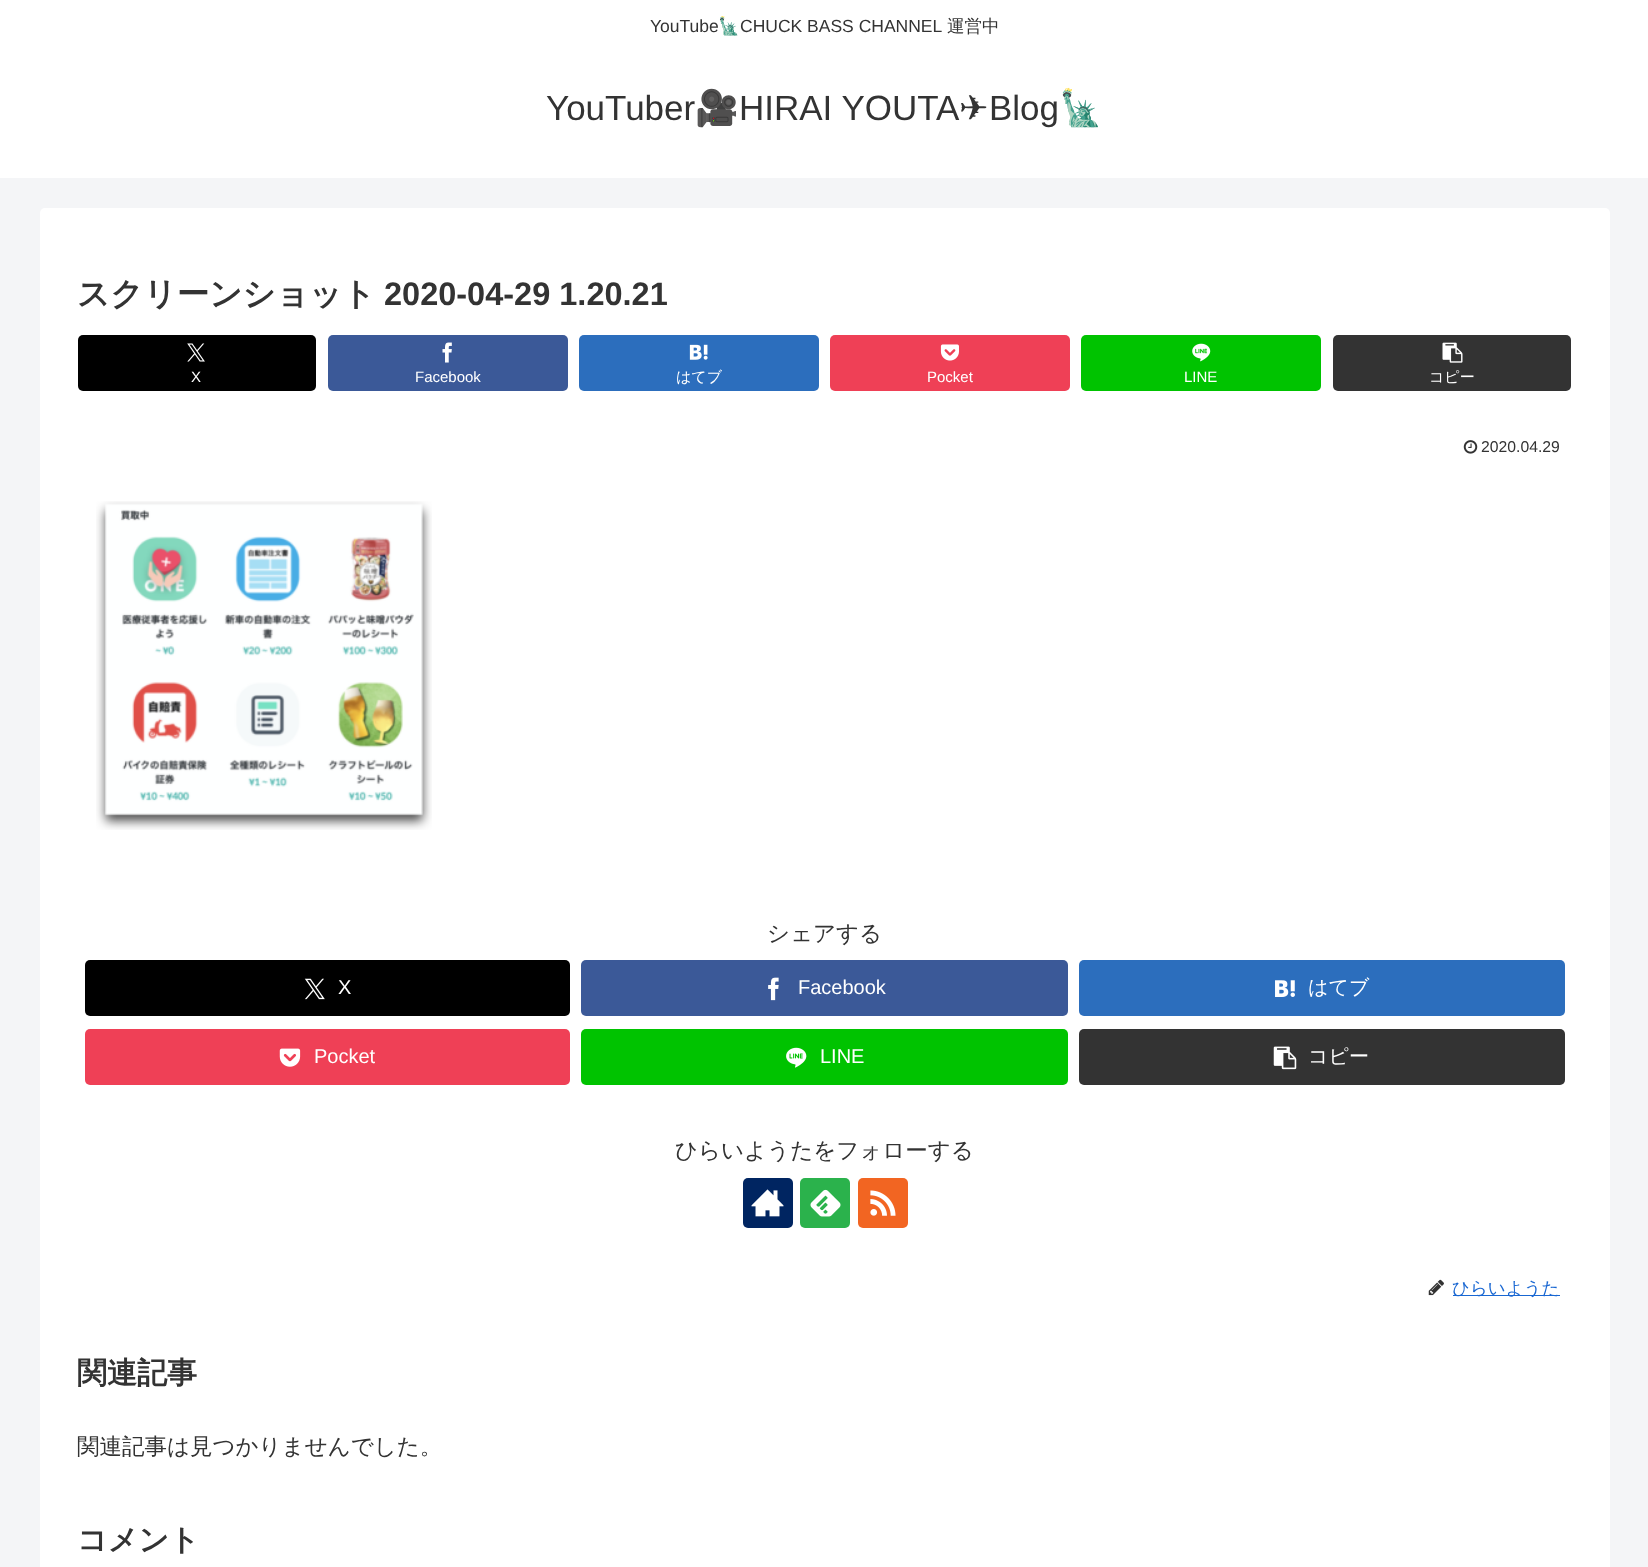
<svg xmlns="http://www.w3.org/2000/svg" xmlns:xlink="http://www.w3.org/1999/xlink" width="1648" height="1567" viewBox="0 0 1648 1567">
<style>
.cls-1{font:17.5px Liberation Sans;fill:#333333}
.cls-2{font:17.5px Noto Color Emoji;fill:#333333}
.cls-3{font:500 17.5px WenQuanYi Zen Hei;fill:#333333}
.cls-4{font:35px Liberation Sans;fill:#333333}
.cls-5{font:35px Noto Color Emoji;fill:#333333}
.cls-6{font:35px DejaVu Sans;fill:#333333}
.cls-7{font:bold 32.5px WenQuanYi Zen Hei;fill:#333333}
.cls-8{font:bold 32.5px Liberation Sans;fill:#333333}
.cls-9{font:15px Liberation Sans;fill:#ffffff}
.cls-10{font:500 15px WenQuanYi Zen Hei;fill:#ffffff}
.cls-11{font:15.75px Liberation Sans;fill:#333333}
.cls-12{font:500 22.5px WenQuanYi Zen Hei;fill:#333333}
.cls-13{font:20px Liberation Sans;fill:#ffffff}
.cls-14{font:500 20px WenQuanYi Zen Hei;fill:#ffffff}
.cls-15{font:500 17.5px WenQuanYi Zen Hei;fill:#1967d2}
.cls-16{font:bold 30px WenQuanYi Zen Hei;fill:#333333}
</style>
<rect width="100%" height="100%" fill="#f4f5f7"/>
<rect fill="#ffffff" x="0" y="0" width="1648" height="178"/>
<rect fill="#ffffff" x="40" y="208" width="1570" height="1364" rx="5"/>
<rect fill="#000000" x="78" y="335" width="238" height="56" rx="5"/>
<image xlink:href="image0.png" x="187" y="343" width="18" height="19"/>
<rect fill="#3b5998" x="328" y="335" width="240" height="56" rx="5"/>
<image xlink:href="image1.png" x="442" y="342" width="10" height="21"/>
<rect fill="#2c6ebd" x="579" y="335" width="240" height="56" rx="5"/>
<image xlink:href="image2.png" x="689" y="344" width="19" height="16"/>
<rect fill="#ef4056" x="830" y="335" width="240" height="56" rx="5"/>
<image xlink:href="image3.png" x="940" y="344" width="19" height="17"/>
<rect fill="#00c300" x="1081" y="335" width="240" height="56" rx="5"/>
<image xlink:href="image4.png" x="1192" y="343" width="19" height="19"/>
<rect fill="#333333" x="1333" y="335" width="238" height="56" rx="5"/>
<image xlink:href="image5.png" x="1442" y="342" width="21" height="21"/>
<image xlink:href="image6.png" x="1463" y="440" width="15" height="14"/>
<image xlink:href="image7.png" x="96" y="501" width="336" height="329"/>
<rect fill="#000000" x="85" y="960" width="485" height="56" rx="5"/>
<image xlink:href="image8.png" x="304" y="978" width="21" height="22"/>
<rect fill="#3b5998" x="581" y="960" width="487" height="56" rx="5"/>
<image xlink:href="image9.png" x="768" y="977" width="11" height="24"/>
<rect fill="#2c6ebd" x="1079" y="960" width="486" height="56" rx="5"/>
<image xlink:href="image10.png" x="1275" y="980" width="20" height="17"/>
<rect fill="#ef4056" x="85" y="1029" width="485" height="56" rx="5"/>
<image xlink:href="image11.png" x="279" y="1048" width="22" height="19"/>
<rect fill="#00c300" x="581" y="1029" width="487" height="56" rx="5"/>
<image xlink:href="image12.png" x="786" y="1047" width="21" height="21"/>
<rect fill="#333333" x="1079" y="1029" width="486" height="56" rx="5"/>
<image xlink:href="image13.png" x="1273" y="1046" width="24" height="24"/>
<rect fill="#002561" x="743" y="1178" width="50" height="50" rx="5"/>
<image xlink:href="image14.png" x="751" y="1189" width="33" height="28"/>
<rect fill="#2bb24c" x="800" y="1178" width="50" height="50" rx="5"/>
<image xlink:href="image15.png" x="810" y="1189" width="31" height="28"/>
<rect fill="#f26522" x="858" y="1178" width="50" height="50" rx="5"/>
<image xlink:href="image16.png" x="870" y="1190" width="26" height="26"/>
<image xlink:href="image17.png" x="1428" y="1279" width="16" height="17"/>
<rect fill="#1967d2" x="1453" y="1295" width="107" height="1"/>
<text class="cls-1" x="650" y="32">YouTube</text>
<text class="cls-2" x="718" y="32">🗽</text>
<text class="cls-1" x="740" y="32">CHUCK BASS CHANNEL</text>
<text class="cls-3" x="947" y="32">運営中</text>
<text class="cls-4" x="546" y="120">YouTuber</text>
<text class="cls-5" x="695" y="120">🎥</text>
<text class="cls-4" x="739" y="120">HIRAI YOUTA</text>
<text class="cls-6" x="959" y="120">✈︎</text>
<text class="cls-4" x="989" y="120">Blog</text>
<text class="cls-5" x="1059" y="120">🗽</text>
<text class="cls-7" x="77" y="305">スクリーンショット</text>
<text class="cls-8" x="384" y="305">2020-04-29 1.20.21</text>
<text class="cls-9" x="191" y="382">X</text>
<text class="cls-9" x="415" y="382">Facebook</text>
<text class="cls-10" x="676" y="382">はてブ</text>
<text class="cls-9" x="927" y="382">Pocket</text>
<text class="cls-9" x="1184" y="382">LINE</text>
<text class="cls-10" x="1429" y="382">コピー</text>
<text class="cls-11" x="1481" y="452">2020.04.29</text>
<text class="cls-12" x="767" y="941">シェアする</text>
<text class="cls-13" x="338" y="994">X</text>
<text class="cls-13" x="798" y="994">Facebook</text>
<text class="cls-14" x="1308" y="994">はてブ</text>
<text class="cls-13" x="314" y="1063">Pocket</text>
<text class="cls-13" x="820" y="1063">LINE</text>
<text class="cls-14" x="1308" y="1063">コピー</text>
<text class="cls-12" x="675" y="1158">ひらいようたをフォローする</text>
<text class="cls-15" x="1452" y="1294">ひらいようた</text>
<text class="cls-16" x="77" y="1383">関連記事</text>
<text class="cls-12" x="77" y="1454">関連記事は見つかりませんでした。</text>
<text class="cls-16" x="77" y="1550">コメント</text>
</svg>
